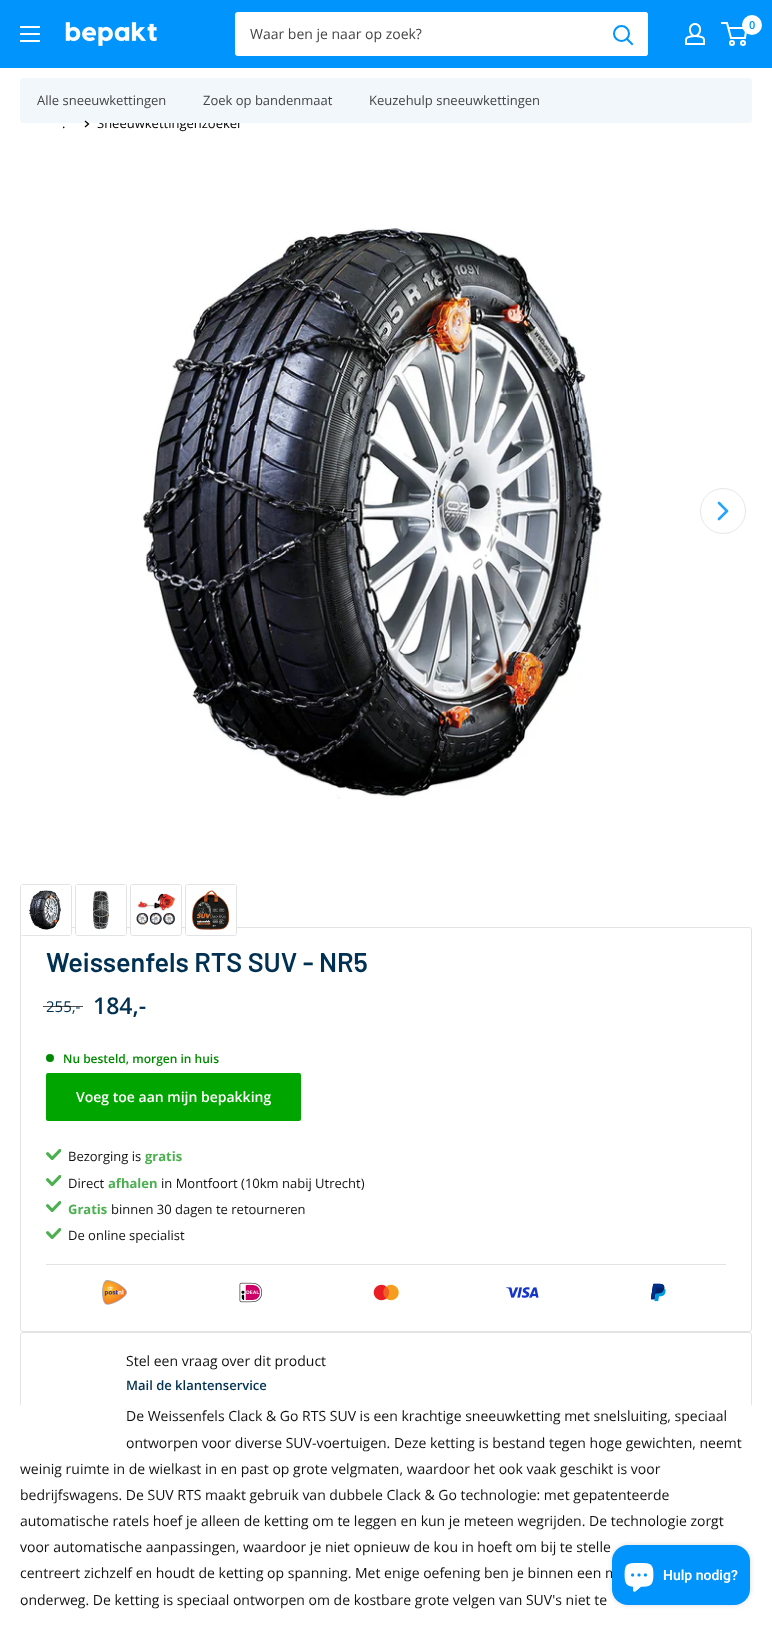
<svg xmlns="http://www.w3.org/2000/svg" xmlns:xlink="http://www.w3.org/1999/xlink" width="772" height="1626" viewBox="0 0 772 1626">
<style>
.cls-1{font:14px Open Sans;fill:#444444}
.cls-2{font:600 11px Open Sans;fill:#0194fc}
.cls-3{font:13px Open Sans;fill:#000000}
.cls-4{font:13px Open Sans;fill:#444444}
.cls-5{font:600 27px Barlow;fill:#003152}
.cls-6{font:15px Open Sans;fill:#003152}
.cls-7{font:600 23px Open Sans;fill:#003152}
.cls-8{font:600 12px Open Sans;fill:#008a00}
.cls-9{font:600 14px Open Sans;fill:#ffffff}
.cls-10{font:13px Open Sans;fill:#111111}
.cls-11{font:bold 13px Open Sans;fill:#4caf50}
.cls-12{font:14px Open Sans;fill:#111111}
.cls-13{font:600 13px Open Sans;fill:#003152}
.cls-14{font:600 14px Roboto;fill:#ffffff}
</style>
<rect width="100%" height="100%" fill="#ffffff"/>
<rect fill="#0194fc" x="0" y="0" width="772" height="68"/>
<image xlink:href="image0.png" x="20" y="26" width="20" height="16"/>
<image xlink:href="image1.png" x="65" y="22" width="92" height="24"/>
<rect fill="#ffffff" x="235" y="12" width="413" height="44" rx="3"/>
<path fill="#ffffff" d="M598 12H645C646.5 12 648 13.5 648 15V53C648 54.5 646.5 56 645 56H598Z"/>
<path fill="none" stroke="#0194fc" stroke-width="2" stroke-linecap="square" d="M632 44L627 39"/>
<circle fill="none" stroke="#0194fc" stroke-width="2" cx="621.5" cy="33.5" r="7.5"/>
<image xlink:href="image2.png" x="685" y="23" width="20" height="22"/>
<circle fill="none" stroke="#ffffff" stroke-width="2" cx="732" cy="43" r="2"/>
<circle fill="none" stroke="#ffffff" stroke-width="2" cx="743" cy="43" r="2"/>
<path fill="none" stroke="#ffffff" stroke-width="2" d="M728.5 28H746.5L745 38H731L727 23H721"/>
<circle fill="#ffffff" cx="752" cy="25" r="10"/>
<image xlink:href="image3.png" x="141" y="228" width="462" height="571"/>
<image xlink:href="image4.png" x="144" y="228" width="456" height="569"/>
<circle fill="none" stroke="#e6e7e8" cx="723" cy="511" r="22.5"/>
<path fill="none" stroke="#26a5ff" stroke-width="2.6" stroke-linecap="round" stroke-linejoin="round" d="M719 503L727 511L719 519"/>
<rect fill="none" stroke="#e1e3e4" x="20.5" y="927.5" width="731" height="404" rx="2.5"/>
<rect fill="none" stroke="#e1e3e4" x="20.5" y="884.5" width="51" height="51" rx="2.5"/>
<image xlink:href="image5.png" x="21" y="885" width="50" height="50"/>
<image xlink:href="image6.png" x="21" y="885" width="50" height="50"/>
<rect fill="none" stroke="#e1e3e4" x="75.5" y="884.5" width="51" height="51" rx="2.5"/>
<image xlink:href="image7.png" x="76" y="885" width="50" height="50"/>
<image xlink:href="image8.png" x="76" y="885" width="50" height="50"/>
<rect fill="none" stroke="#e1e3e4" x="130.5" y="884.5" width="51" height="51" rx="2.5"/>
<image xlink:href="image9.png" x="131" y="885" width="50" height="50"/>
<rect fill="none" stroke="#e1e3e4" x="185.5" y="884.5" width="51" height="51" rx="2.5"/>
<image xlink:href="image10.png" x="186" y="885" width="50" height="50"/>
<circle fill="#008a00" cx="50" cy="1058" r="4"/>
<rect fill="#00a500" x="46" y="1073" width="255" height="48" rx="2"/>
<image xlink:href="image11.png" x="46" y="1149" width="15" height="12"/>
<image xlink:href="image11.png" x="46" y="1175" width="15" height="12"/>
<image xlink:href="image11.png" x="46" y="1201" width="15" height="12"/>
<image xlink:href="image11.png" x="46" y="1228" width="15" height="12"/>
<rect fill="#e1e3e4" x="46" y="1264" width="680" height="1"/>
<image xlink:href="image12.png" x="102" y="1280" width="25" height="25"/>
<image xlink:href="image13.png" x="239" y="1282" width="23" height="21"/>
<image xlink:href="image14.png" x="373" y="1284" width="26" height="17"/>
<image xlink:href="image15.png" x="505" y="1287" width="34" height="11"/>
<image xlink:href="image16.png" x="650" y="1283" width="16" height="19"/>
<rect fill="none" stroke="#e1e3e4" x="20.5" y="1332.5" width="731" height="80" rx="2.5"/>
<rect fill="#ffffff" x="20" y="1403" width="732" height="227" rx="4"/>
<rect fill="#000000" fill-opacity="0.15" filter="blur(2.5px)" x="612" y="1545" width="138" height="60" rx="16"/>
<text class="cls-1" x="250" y="39">Waar ben je naar op zoek?</text>
<text class="cls-2" x="749" y="29">0</text>
<text class="cls-3" x="62" y="128">.</text>
<text class="cls-3" x="97" y="128">Sneeuwkettingenzoeker</text>
<rect fill="#f2f7fc" x="20" y="78" width="732" height="45" rx="3"/>
<path fill="none" stroke="#000000" stroke-width="1.3" stroke-linecap="square" d="M85.5 121.5L88.5 124L85.5 126.5"/>
<text class="cls-4" x="369" y="105">Keuzehulp sneeuwkettingen</text>
<text class="cls-4" x="203" y="105">Zoek op bandenmaat</text>
<text class="cls-4" x="37" y="105">Alle sneeuwkettingen</text>
<text class="cls-5" x="46" y="972">Weissenfels RTS SUV - NR5</text>
<text class="cls-6" x="46" y="1012">255,-</text>
<rect fill="#000000" fill-opacity="0.7" x="43" y="1006" width="40" height="1"/>
<text class="cls-7" x="93" y="1014">184,-</text>
<text class="cls-8" x="63" y="1063">Nu besteld, morgen in huis</text>
<text class="cls-9" x="76" y="1102">Voeg toe aan mijn bepakking</text>
<text class="cls-10" x="68" y="1161">Bezorging is</text>
<text class="cls-11" x="145" y="1161">gratis</text>
<text class="cls-10" x="68" y="1188">Direct</text>
<text class="cls-11" x="108" y="1188">afhalen</text>
<text class="cls-10" x="161" y="1188">in Montfoort (10km nabij Utrecht)</text>
<text class="cls-11" x="68" y="1214">Gratis</text>
<text class="cls-10" x="111" y="1214">binnen 30 dagen te retourneren</text>
<text class="cls-10" x="68" y="1240">De online specialist</text>
<text class="cls-12" x="126" y="1366">Stel een vraag over dit product</text>
<text class="cls-13" x="126" y="1390">Mail de klantenservice</text>
<text class="cls-12"><tspan x="126" y="1421">De Weissenfels Clack &amp; Go RTS SUV is een krachtige sneeuwketting met snelsluiting, speciaal</tspan><tspan x="126" y="1448">ontworpen voor diverse SUV-voertuigen. Deze ketting is bestand tegen hoge gewichten, neemt</tspan></text>
<text class="cls-12"><tspan x="20" y="1474">weinig ruimte in de wielkast in en past op grote velgmaten, waardoor het ook vaak geschikt is voor</tspan><tspan x="20" y="1500">bedrijfswagens. De SUV RTS maakt gebruik van dubbele Clack &amp; Go technologie: met gepatenteerde</tspan><tspan x="20" y="1526">automatische ratels hoef je alleen de ketting om te leggen en kun je meteen wegrijden. De technologie zorgt</tspan><tspan x="20" y="1552">voor automatische aanpassingen, waardoor je niet opnieuw de kou in hoeft om bij te stelle</tspan><tspan x="20" y="1578">centreert zichzelf en houdt de ketting op spanning. Met enige oefening ben je binnen een m</tspan><tspan x="20" y="1605">onderweg. De ketting is speciaal ontworpen om de kostbare grote velgen van SUV's niet te</tspan></text>
<rect fill="#0194fc" x="612" y="1545" width="138" height="60" rx="16"/>
<image xlink:href="image17.png" x="624" y="1563" width="30" height="29"/>
<text class="cls-14" x="663" y="1580">Hulp nodig?</text>
</svg>
